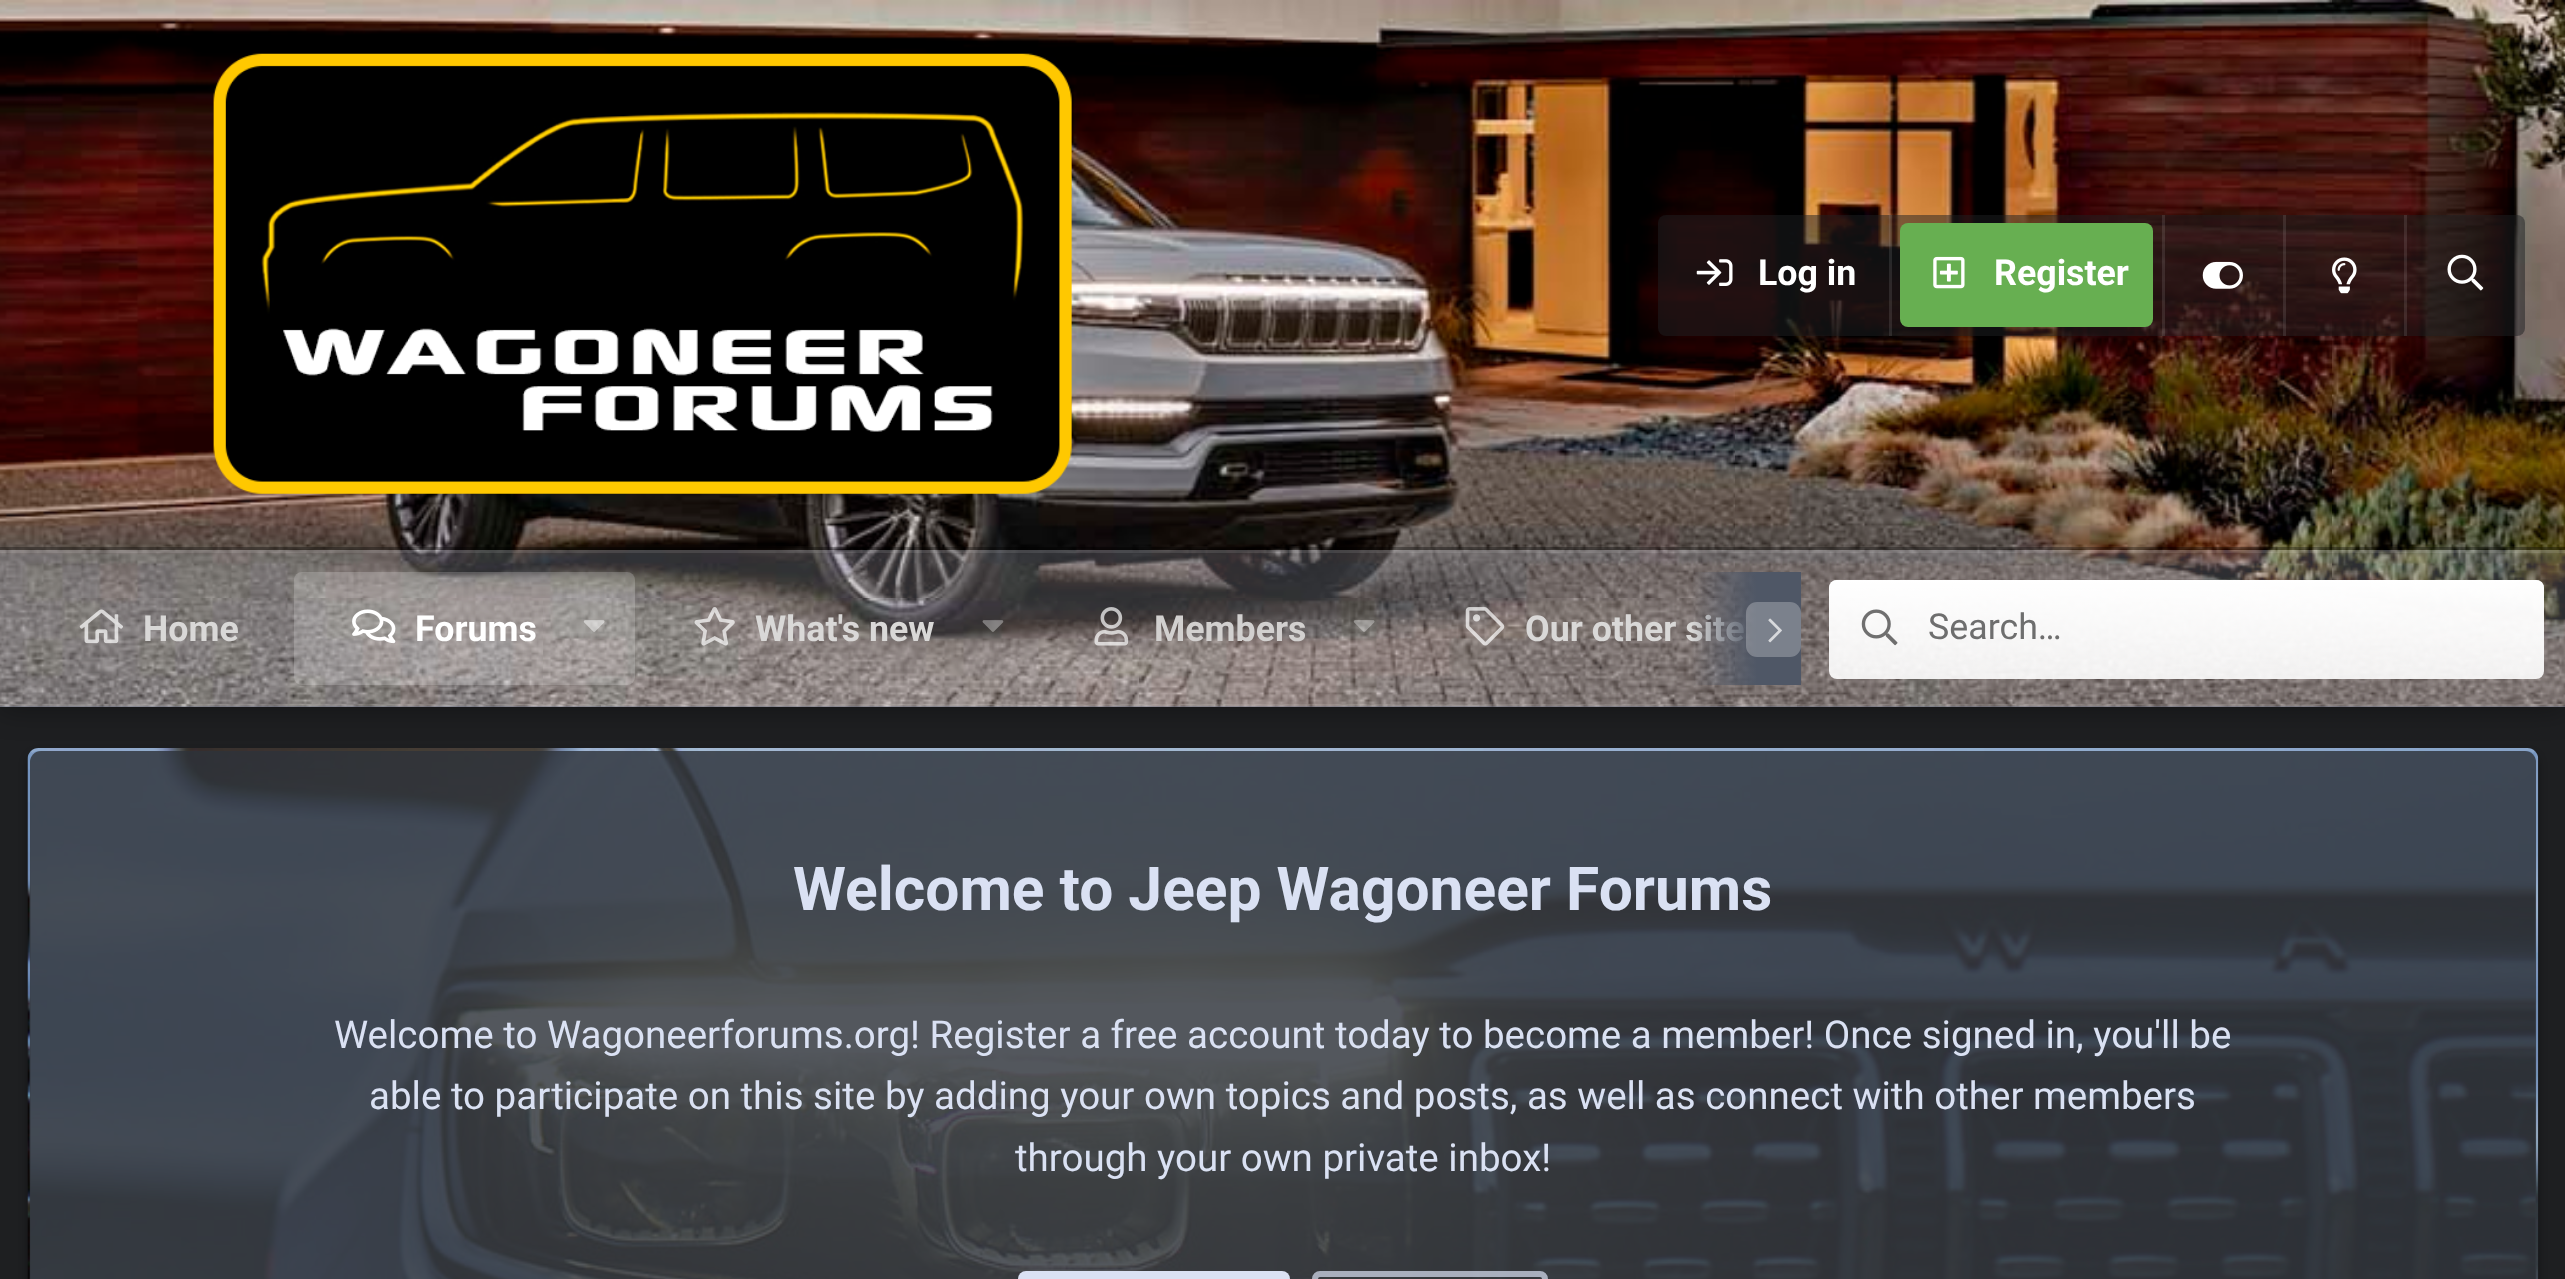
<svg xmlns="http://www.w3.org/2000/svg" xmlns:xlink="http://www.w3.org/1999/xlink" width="2565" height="1279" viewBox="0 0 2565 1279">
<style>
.cls-1{font:bold 35.75px Roboto;fill:#ffffff}
.cls-2{font:bold 35.75px Roboto;fill:#d9d8d7}
.cls-3{font:bold 35.75px Roboto;fill:#d2d0cf}
.cls-4{font:35.75px Roboto;fill:#6e6e6e}
.cls-5{font:bold 60.5px Roboto;fill:#dae1f3}
.cls-6{font:38.5px Roboto;fill:#dae1f3}
</style>
<defs>
<linearGradient id="g1" gradientUnits="userSpaceOnUse" x1="2186" y1="580" x2="2186" y2="679"><stop offset="0" stop-color="#ffffff"/><stop offset="1" stop-color="#ffffff" stop-opacity="0"/></linearGradient>
<linearGradient id="g2" gradientUnits="userSpaceOnUse" x1="1691" y1="628" x2="1801" y2="628"><stop offset="0" stop-color="#4f5766" stop-opacity="0"/><stop offset="0.6" stop-color="#4f5766"/></linearGradient>
</defs>
<rect width="100%" height="100%" fill="#1e1f21"/>
<rect fill="#000000" fill-opacity="0.4" filter="blur(4px)" x="28" y="754" width="2510" height="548" rx="11"/>
<image xlink:href="image18.png" x="27" y="748" width="2512" height="531"/>
<path fill="none" stroke="#ffffff" stroke-opacity="0.16" stroke-width="2.8" d="M31.5 752C33.5 750.5 36 749.5 38.5 749.5H2527C2530 749.5 2532.5 750.5 2534 752"/>
<path fill="none" stroke="#ffffff" stroke-opacity="0.03" stroke-width="2.8" d="M2534 752C2536 754 2537 756.5 2537 759V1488C2537 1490.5 2536 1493 2534 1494.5C2532.5 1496.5 2530 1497.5 2527 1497.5H38.5C36 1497.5 33.5 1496.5 31.5 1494.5C30 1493 29 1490.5 29 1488V759C29 756.5 30 754 31.5 752"/>
<rect fill="#353941" fill-opacity="0.85" x="30" y="751" width="2506" height="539" rx="11"/>
<rect fill="#000000" fill-opacity="0.35" filter="blur(14px)" x="0" y="3" width="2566" height="707"/>
<rect fill="#323d5e" x="0" y="703" width="2565" height="4"/>
<image xlink:href="image0.png" x="0" y="703" width="2565" height="4"/>
<image xlink:href="image1.png" x="0" y="0" width="2565" height="704"/>
<image xlink:href="image2.png" x="213" y="53" width="859" height="441"/>
<rect fill="#1e1f21" fill-opacity="0.5" x="1658" y="215" width="867" height="121" rx="8"/>
<image xlink:href="image3.png" x="1696" y="259" width="37" height="27"/>
<rect fill="#ffffff" fill-opacity="0.1" x="1889" y="215" width="3" height="121"/>
<rect fill="#67af51" x="1900" y="223" width="253" height="104" rx="8"/>
<image xlink:href="image4.png" x="1933" y="256" width="32" height="33"/>
<rect fill="#ffffff" fill-opacity="0.1" x="2162" y="215" width="3" height="121"/>
<image xlink:href="image5.png" x="2202" y="261" width="41" height="28"/>
<rect fill="#ffffff" fill-opacity="0.1" x="2283" y="215" width="3" height="121"/>
<image xlink:href="image6.png" x="2332" y="257" width="25" height="37"/>
<rect fill="#ffffff" fill-opacity="0.1" x="2404" y="215" width="3" height="121"/>
<image xlink:href="image7.png" x="2447" y="254" width="37" height="37"/>
<path fill="#000000" fill-opacity="0.3" d="M0 547V550H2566V704V547Z"/>
<rect fill="#e1e8f8" fill-opacity="0.2" x="0" y="550" width="2565" height="157"/>
<rect fill="#ffffff" fill-opacity="0.1" x="0" y="550" width="2565" height="3"/>
<rect fill="#ffffff" fill-opacity="0.1" x="0" y="704" width="2565" height="3"/>
<image xlink:href="image8.png" x="79" y="609" width="44" height="35"/>
<rect fill="#ffffff" fill-opacity="0.2" x="294" y="572" width="341" height="113" rx="8"/>
<image xlink:href="image9.png" x="352" y="609" width="44" height="35"/>
<image xlink:href="image10.png" x="583" y="620" width="22" height="12"/>
<image xlink:href="image11.png" x="694" y="607" width="41" height="39"/>
<image xlink:href="image12.png" x="982" y="620" width="22" height="12"/>
<image xlink:href="image13.png" x="1094" y="607" width="35" height="39"/>
<image xlink:href="image14.png" x="1353" y="620" width="22" height="12"/>
<image xlink:href="image15.png" x="1465" y="607" width="40" height="39"/>
<rect fill="#ffffff" fill-opacity="0.9" x="1829" y="580" width="715" height="99" rx="8"/>
<rect fill="url(#g1)" x="1829" y="580" width="715" height="99" rx="8"/>
<image xlink:href="image17.png" x="1861" y="609" width="37" height="37"/>
<rect fill="#dae1f3" x="1018" y="1271" width="272" height="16" rx="8"/>
<rect fill="none" stroke="#dae1f3" stroke-opacity="0.7" stroke-width="6" x="1315" y="1274" width="230" height="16" rx="5"/>
<text class="cls-1" x="1758" y="285">Log in</text>
<text class="cls-1" x="1994" y="285">Register</text>
<text class="cls-2" x="143" y="641">Home</text>
<text class="cls-1" x="415" y="641">Forums</text>
<text class="cls-2" x="755" y="641">What's new</text>
<text class="cls-3" x="1154" y="641">Members</text>
<text class="cls-2" x="1525" y="641">Our other site</text>
<rect fill="url(#g2)" x="1692" y="572" width="109" height="113"/>
<rect fill="#ffffff" fill-opacity="0.25" x="1746" y="602" width="55" height="55" rx="11"/>
<image xlink:href="image16.png" x="1768" y="618" width="14" height="25"/>
<text class="cls-4" x="1928" y="639">Search…</text>
<text class="cls-5" x="793" y="910">Welcome to Jeep Wagoneer Forums</text>
<text class="cls-6" x="334" y="1048">Welcome to Wagoneerforums.org! Register a free account today to become a member! Once signed in, you'll be</text>
<text class="cls-6" x="369" y="1109">able to participate on this site by adding your own topics and posts, as well as connect with other members</text>
<text class="cls-6" x="1015" y="1171">through your own private inbox!</text>
</svg>
